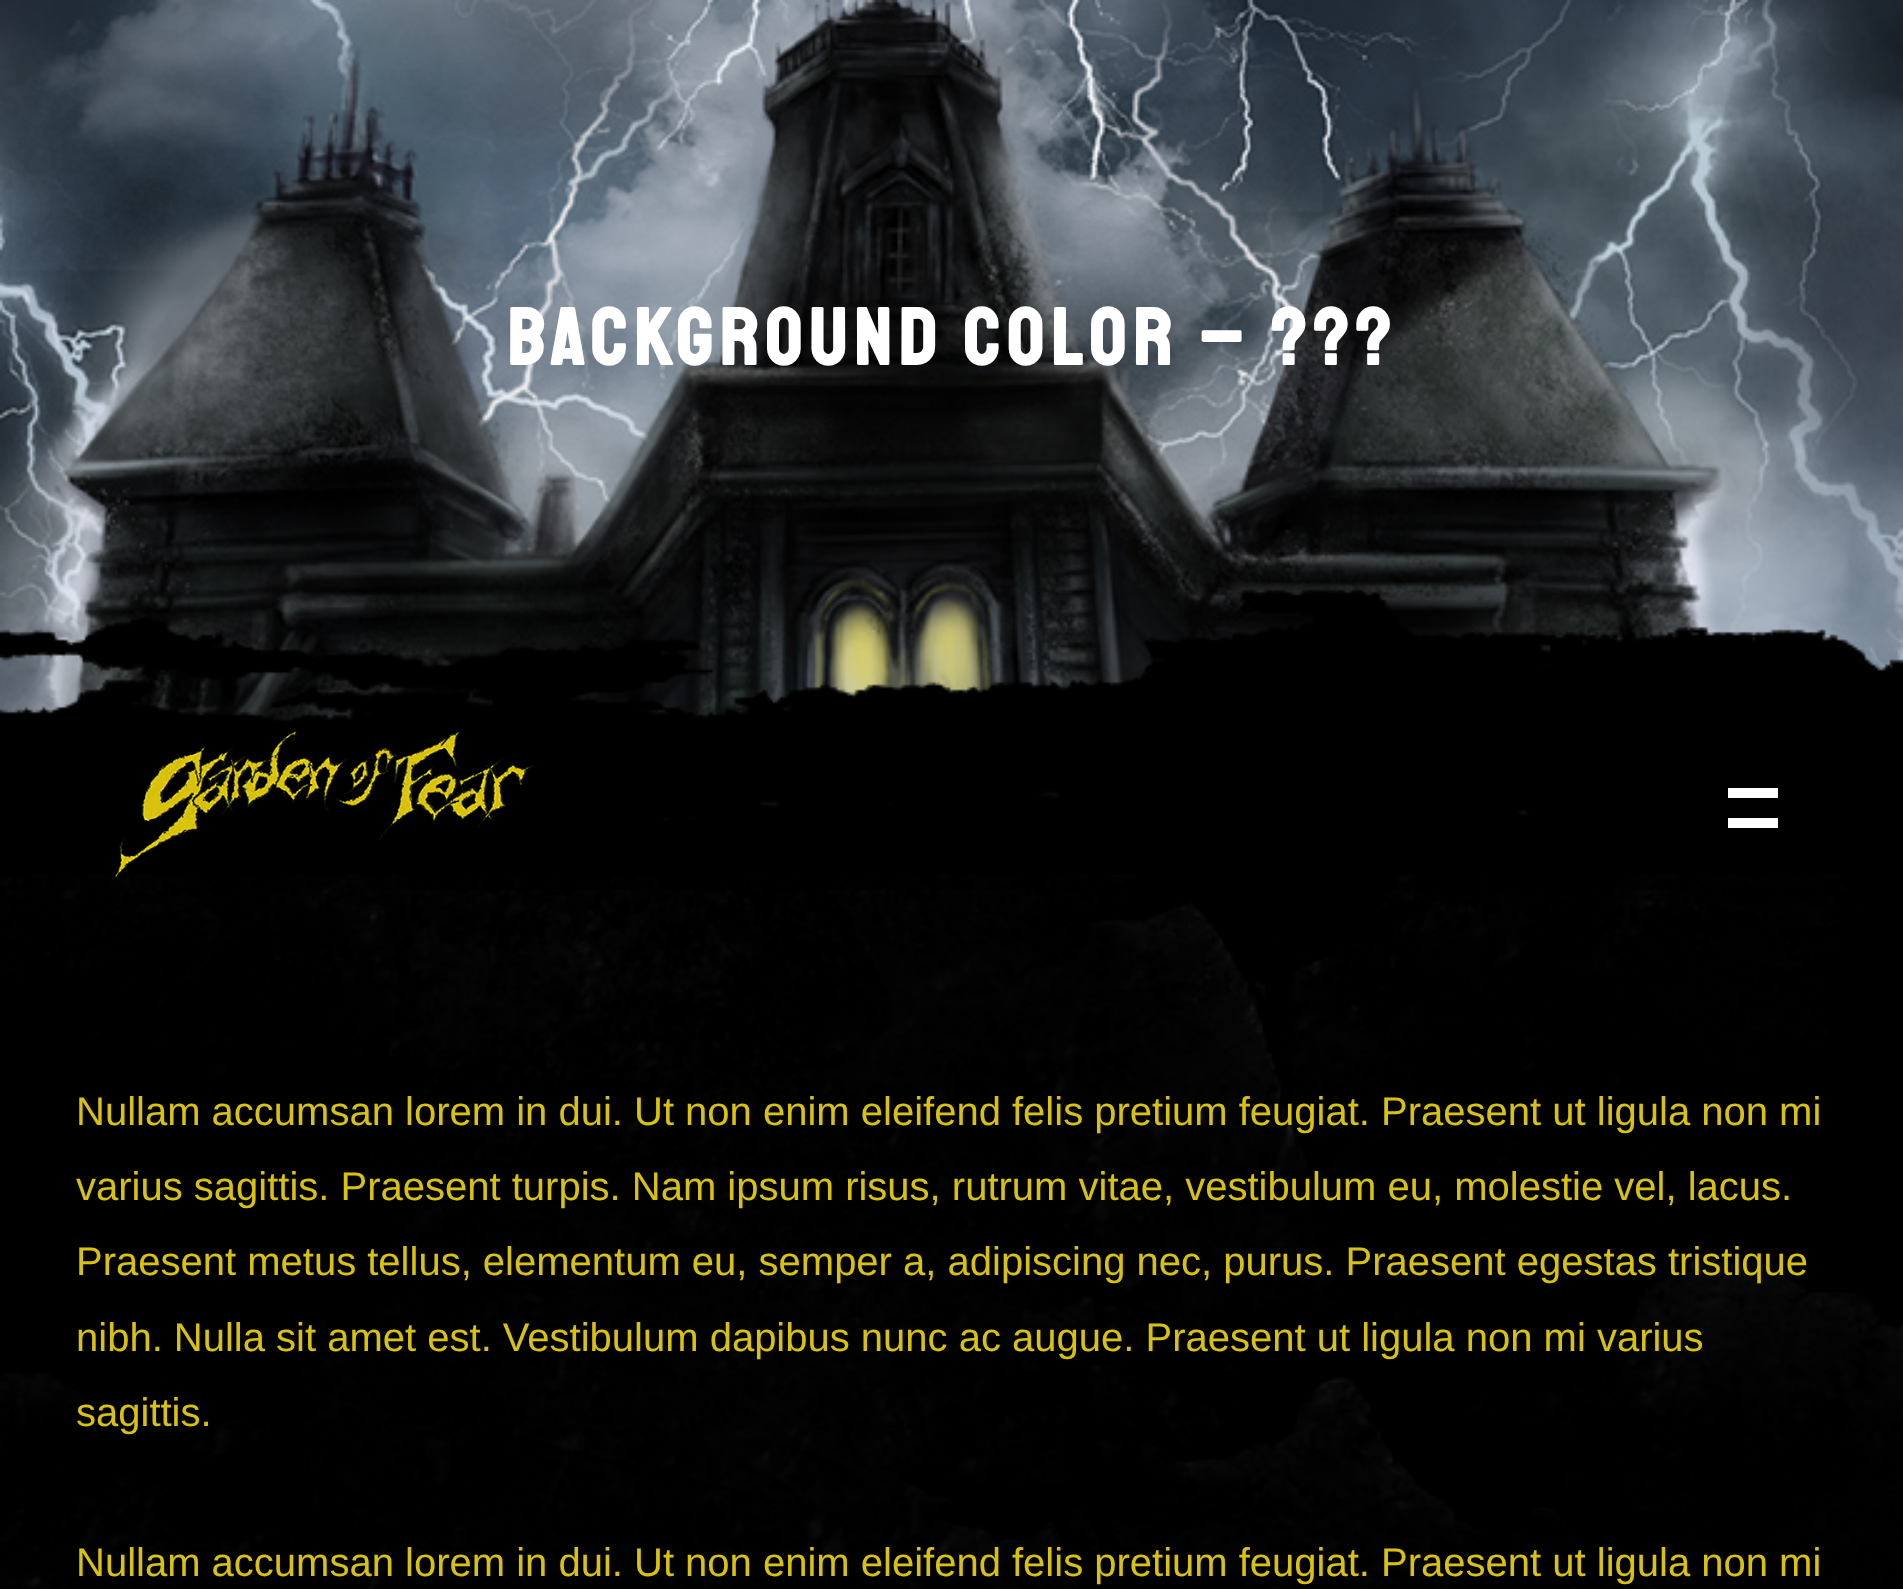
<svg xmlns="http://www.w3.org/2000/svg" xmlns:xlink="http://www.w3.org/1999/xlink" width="1903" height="1589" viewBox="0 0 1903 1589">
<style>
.cls-1{font:bold 80px Staatliches;letter-spacing:7.5px;fill:#ffffff}
.cls-2{font:40px Liberation Sans;fill:#d8c20d}
</style>
<rect width="100%" height="100%" fill="#ffffff"/>
<image xlink:href="image0.png" x="0" y="875" width="1903" height="714"/>
<rect fill="#000000" x="0" y="821" width="1903" height="54"/>
<image xlink:href="image1.png" x="0" y="0" width="1903" height="821"/>
<rect fill="#000000" fill-opacity="0.44" x="396" y="792" width="1275" height="98"/>
<image xlink:href="image2.png" x="112" y="731" width="423" height="150"/>
<rect fill="#ffffff" x="1728" y="788" width="50" height="10"/>
<rect fill="#ffffff" x="1728" y="818" width="50" height="10"/>
<text class="cls-1" x="507" y="365">BACKGROUND COLOR – ???</text>
<text class="cls-2"><tspan x="76" y="1125">Nullam accumsan lorem in dui. Ut non enim eleifend felis pretium feugiat. Praesent ut ligula non mi</tspan><tspan x="76" y="1200">varius sagittis. Praesent turpis. Nam ipsum risus, rutrum vitae, vestibulum eu, molestie vel, lacus.</tspan><tspan x="76" y="1275">Praesent metus tellus, elementum eu, semper a, adipiscing nec, purus. Praesent egestas tristique</tspan><tspan x="76" y="1351">nibh. Nulla sit amet est. Vestibulum dapibus nunc ac augue. Praesent ut ligula non mi varius</tspan><tspan x="76" y="1426">sagittis.</tspan></text>
<text class="cls-2" x="76" y="1576">Nullam accumsan lorem in dui. Ut non enim eleifend felis pretium feugiat. Praesent ut ligula non mi</text>
</svg>
